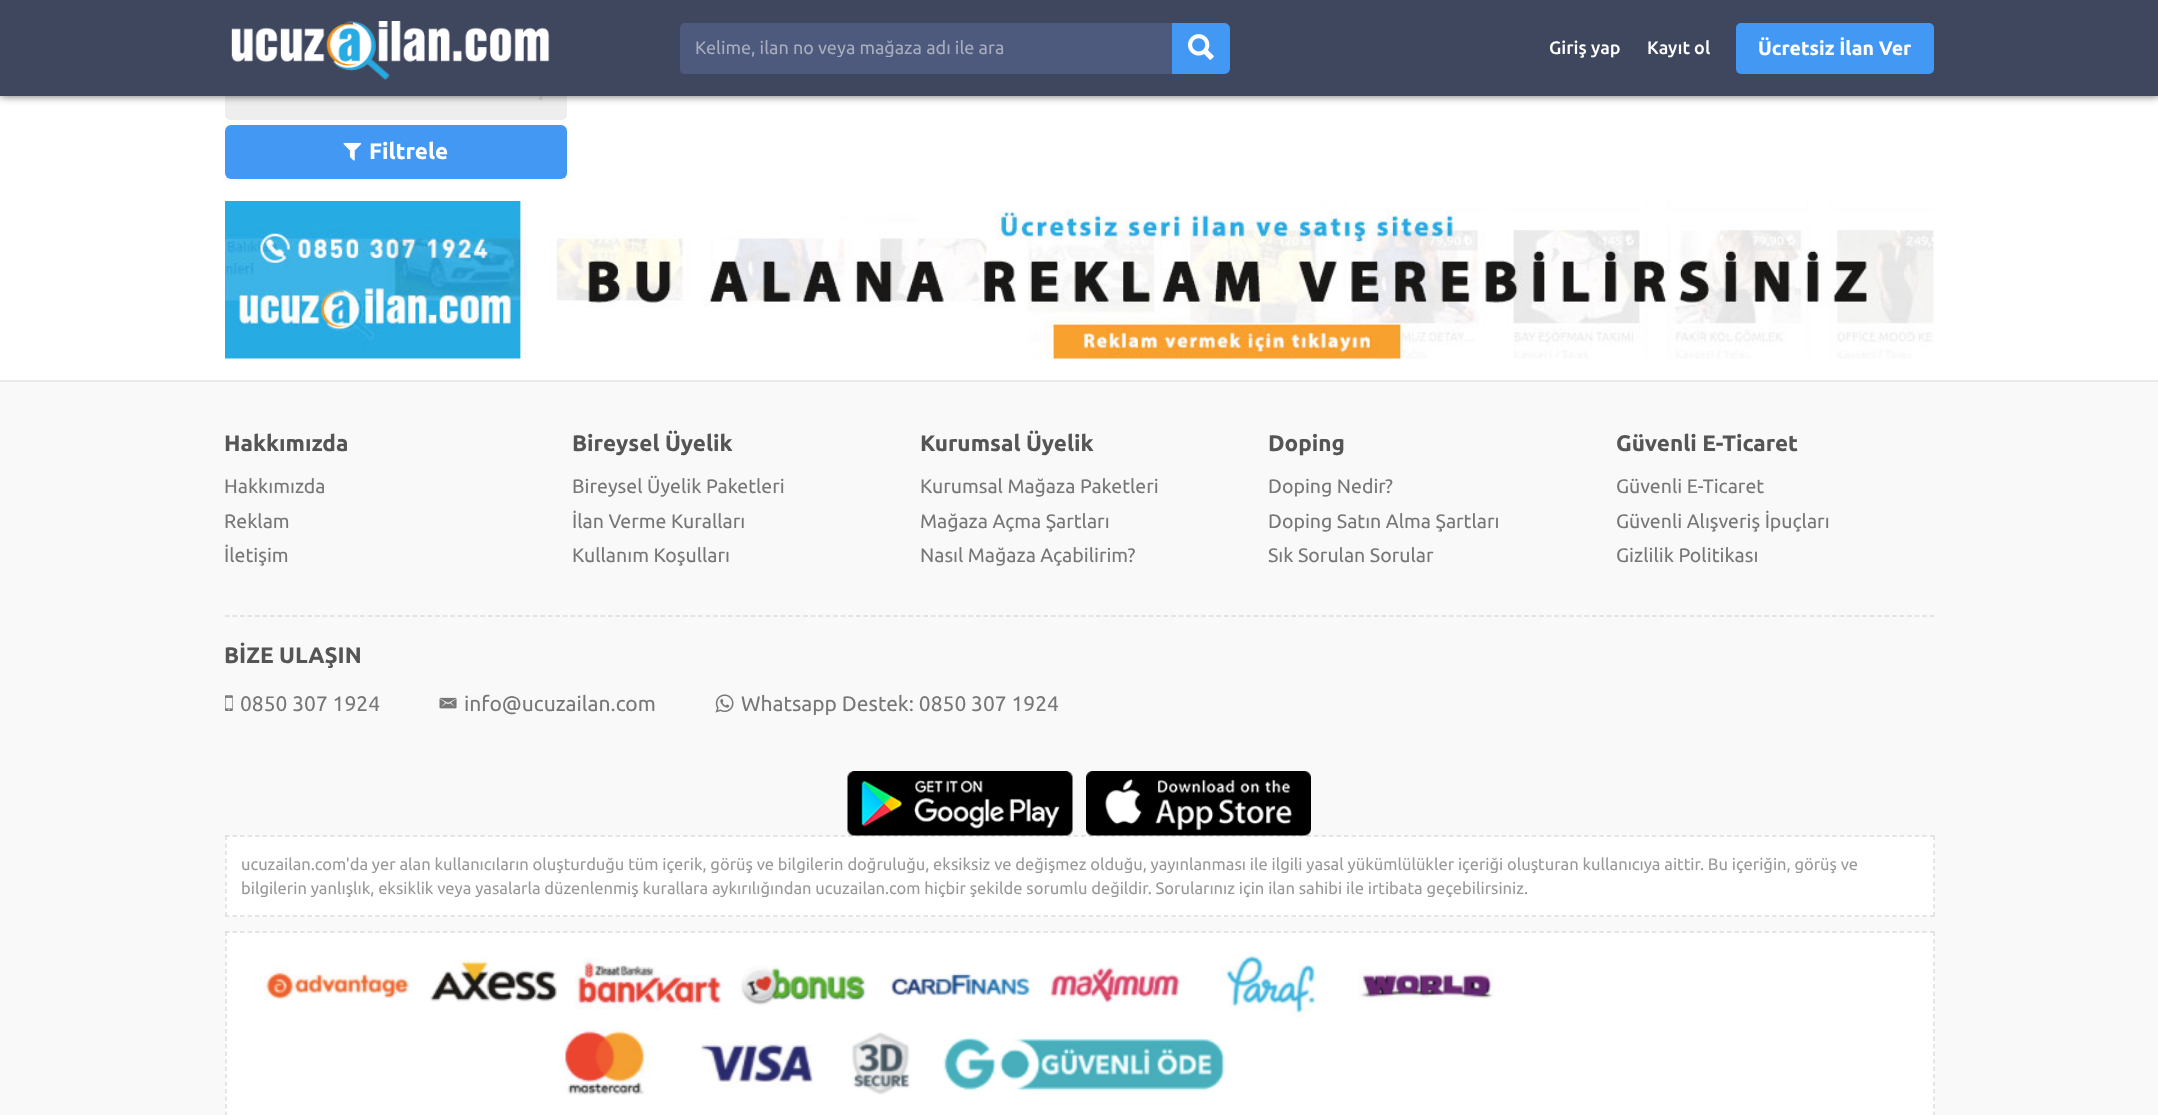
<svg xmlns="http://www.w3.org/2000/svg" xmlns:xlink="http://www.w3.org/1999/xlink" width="2158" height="1115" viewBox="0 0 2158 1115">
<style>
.cls-1{font:18px Ubuntu;fill:#a7adbe}
.cls-2{font:500 18px Ubuntu;fill:#ffffff}
.cls-3{font:bold 19.5px Ubuntu;fill:#ffffff}
.cls-4{font:bold 22.5px Ubuntu;fill:#ffffff}
.cls-5{font:bold 22.5px Ubuntu;fill:#555555}
.cls-6{font:19.5px Ubuntu;fill:#777777}
.cls-7{font:21px Ubuntu;fill:#777777}
.cls-8{font:16.5px Ubuntu;fill:#999999}
</style>
<defs>
<clipPath id="clip1"><rect x="695" y="38" width="463" height="19"/></clipPath>
</defs>
<rect width="100%" height="100%" fill="#ffffff"/>
<rect fill="#eeeeee" x="225" y="60" width="342" height="60" rx="5"/>
<image xlink:href="image2.png" x="538" y="96" width="5" height="5"/>
<rect fill="#000000" fill-opacity="0.6" filter="blur(4px)" x="0" y="0" width="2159" height="96"/>
<rect fill="#3f475f" x="0" y="0" width="2158" height="96"/>
<image xlink:href="image0.png" x="231" y="21" width="319" height="59"/>
<path fill="#4e5a7d" d="M685 23H1173V74H685C682 74 680 72 680 69V28C680 25 682 23 685 23Z"/>
<path fill="#4398f4" d="M1172 23H1224C1227.5 23 1230 25.5 1230 29V68C1230 71.5 1227.5 74 1224 74H1172Z"/>
<image xlink:href="image1.png" x="1188" y="34" width="26" height="26"/>
<rect fill="#4398f4" x="1736" y="23" width="198" height="51" rx="5"/>
<rect fill="#4398f4" x="225" y="125" width="342" height="54" rx="6"/>
<image xlink:href="image3.png" x="343" y="142" width="19" height="19"/>
<image xlink:href="image4.png" x="225" y="201" width="1709" height="158"/>
<rect fill="#f9f9f9" x="0" y="382" width="2158" height="733"/>
<rect fill="#eaeaea" x="0" y="380" width="2158" height="2"/>
<path fill="none" stroke="#dddddd" stroke-width="1.5" stroke-dasharray="4.5 3.01" d="M225 616H1935"/>
<image xlink:href="image5.png" x="225" y="695" width="8" height="16"/>
<image xlink:href="image6.png" x="439" y="697" width="18" height="12"/>
<image xlink:href="image7.png" x="715" y="694" width="19" height="19"/>
<rect fill="#ffffff" x="225" y="836" width="1710" height="81"/>
<path fill="none" stroke="#dddddd" stroke-width="1.5" stroke-dasharray="4.5 3.01" d="M225 836H1935"/>
<image xlink:href="image8.png" x="847" y="771" width="226" height="65"/>
<image xlink:href="image9.png" x="1086" y="771" width="225" height="65"/>
<path fill="none" stroke="#dddddd" stroke-width="1.5" stroke-dasharray="4.5 3.15" d="M1934 835.5V916.5"/>
<path fill="none" stroke="#dddddd" stroke-width="1.5" stroke-dasharray="4.5 3.01" d="M225 916H1935"/>
<path fill="none" stroke="#dddddd" stroke-width="1.5" stroke-dasharray="4.5 3.15" d="M226 835.5V916.5"/>
<rect fill="#ffffff" x="225" y="932" width="1710" height="183"/>
<path fill="none" stroke="#dddddd" stroke-width="1.5" stroke-dasharray="4.5 3.01" d="M225 932H1935"/>
<path fill="none" stroke="#dddddd" stroke-width="1.5" stroke-dasharray="4.5 3" d="M1934 931.5V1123.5"/>
<path fill="none" stroke="#dddddd" stroke-width="1.5" stroke-dasharray="4.5 3" d="M226 931.5V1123.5"/>
<image xlink:href="image10.png" x="264" y="953" width="1231" height="142"/>
<g clip-path="url(#clip1)">
<text class="cls-1" x="695" y="54">Kelime, ilan no veya mağaza adı ile ara</text>
</g>
<text class="cls-2" x="1549" y="54">Giriş yap</text>
<text class="cls-2" x="1647" y="54">Kayıt ol</text>
<text class="cls-3" x="1758" y="55">Ücretsiz İlan Ver</text>
<text class="cls-4" x="369" y="159">Filtrele</text>
<text class="cls-5" x="224" y="451">Hakkımızda</text>
<text class="cls-6"><tspan x="224" y="493">Hakkımızda</tspan><tspan x="224" y="528">Reklam</tspan><tspan x="224" y="562">İletişim</tspan></text>
<text class="cls-5" x="572" y="451">Bireysel Üyelik</text>
<text class="cls-6"><tspan x="572" y="493">Bireysel Üyelik Paketleri</tspan><tspan x="572" y="528">İlan Verme Kuralları</tspan><tspan x="572" y="562">Kullanım Koşulları</tspan></text>
<text class="cls-5" x="920" y="451">Kurumsal Üyelik</text>
<text class="cls-6"><tspan x="920" y="493">Kurumsal Mağaza Paketleri</tspan><tspan x="920" y="528">Mağaza Açma Şartları</tspan><tspan x="920" y="562">Nasıl Mağaza Açabilirim?</tspan></text>
<text class="cls-5" x="1268" y="451">Doping</text>
<text class="cls-6"><tspan x="1268" y="493">Doping Nedir?</tspan><tspan x="1268" y="528">Doping Satın Alma Şartları</tspan><tspan x="1268" y="562">Sık Sorulan Sorular</tspan></text>
<text class="cls-5" x="1616" y="451">Güvenli E-Ticaret</text>
<text class="cls-6"><tspan x="1616" y="493">Güvenli E-Ticaret</tspan><tspan x="1616" y="528">Güvenli Alışveriş İpuçları</tspan><tspan x="1616" y="562">Gizlilik Politikası</tspan></text>
<text class="cls-5" x="224" y="663">BİZE ULAŞIN</text>
<text class="cls-7" x="240" y="711">0850 307 1924</text>
<text class="cls-7" x="464" y="711">info@ucuzailan.com</text>
<text class="cls-7" x="741" y="711">Whatsapp Destek: 0850 307 1924</text>
<text class="cls-8"><tspan x="241" y="870">ucuzailan.com'da yer alan kullanıcıların oluşturduğu tüm içerik, görüş ve bilgilerin doğruluğu, eksiksiz ve değişmez olduğu, yayınlanması ile ilgili yasal yükümlülükler içeriği oluşturan kullanıcıya aittir. Bu içeriğin, görüş ve</tspan><tspan x="241" y="894">bilgilerin yanlışlık, eksiklik veya yasalarla düzenlenmiş kurallara aykırılığından ucuzailan.com hiçbir şekilde sorumlu değildir. Sorularınız için ilan sahibi ile irtibata geçebilirsiniz.</tspan></text>
</svg>
